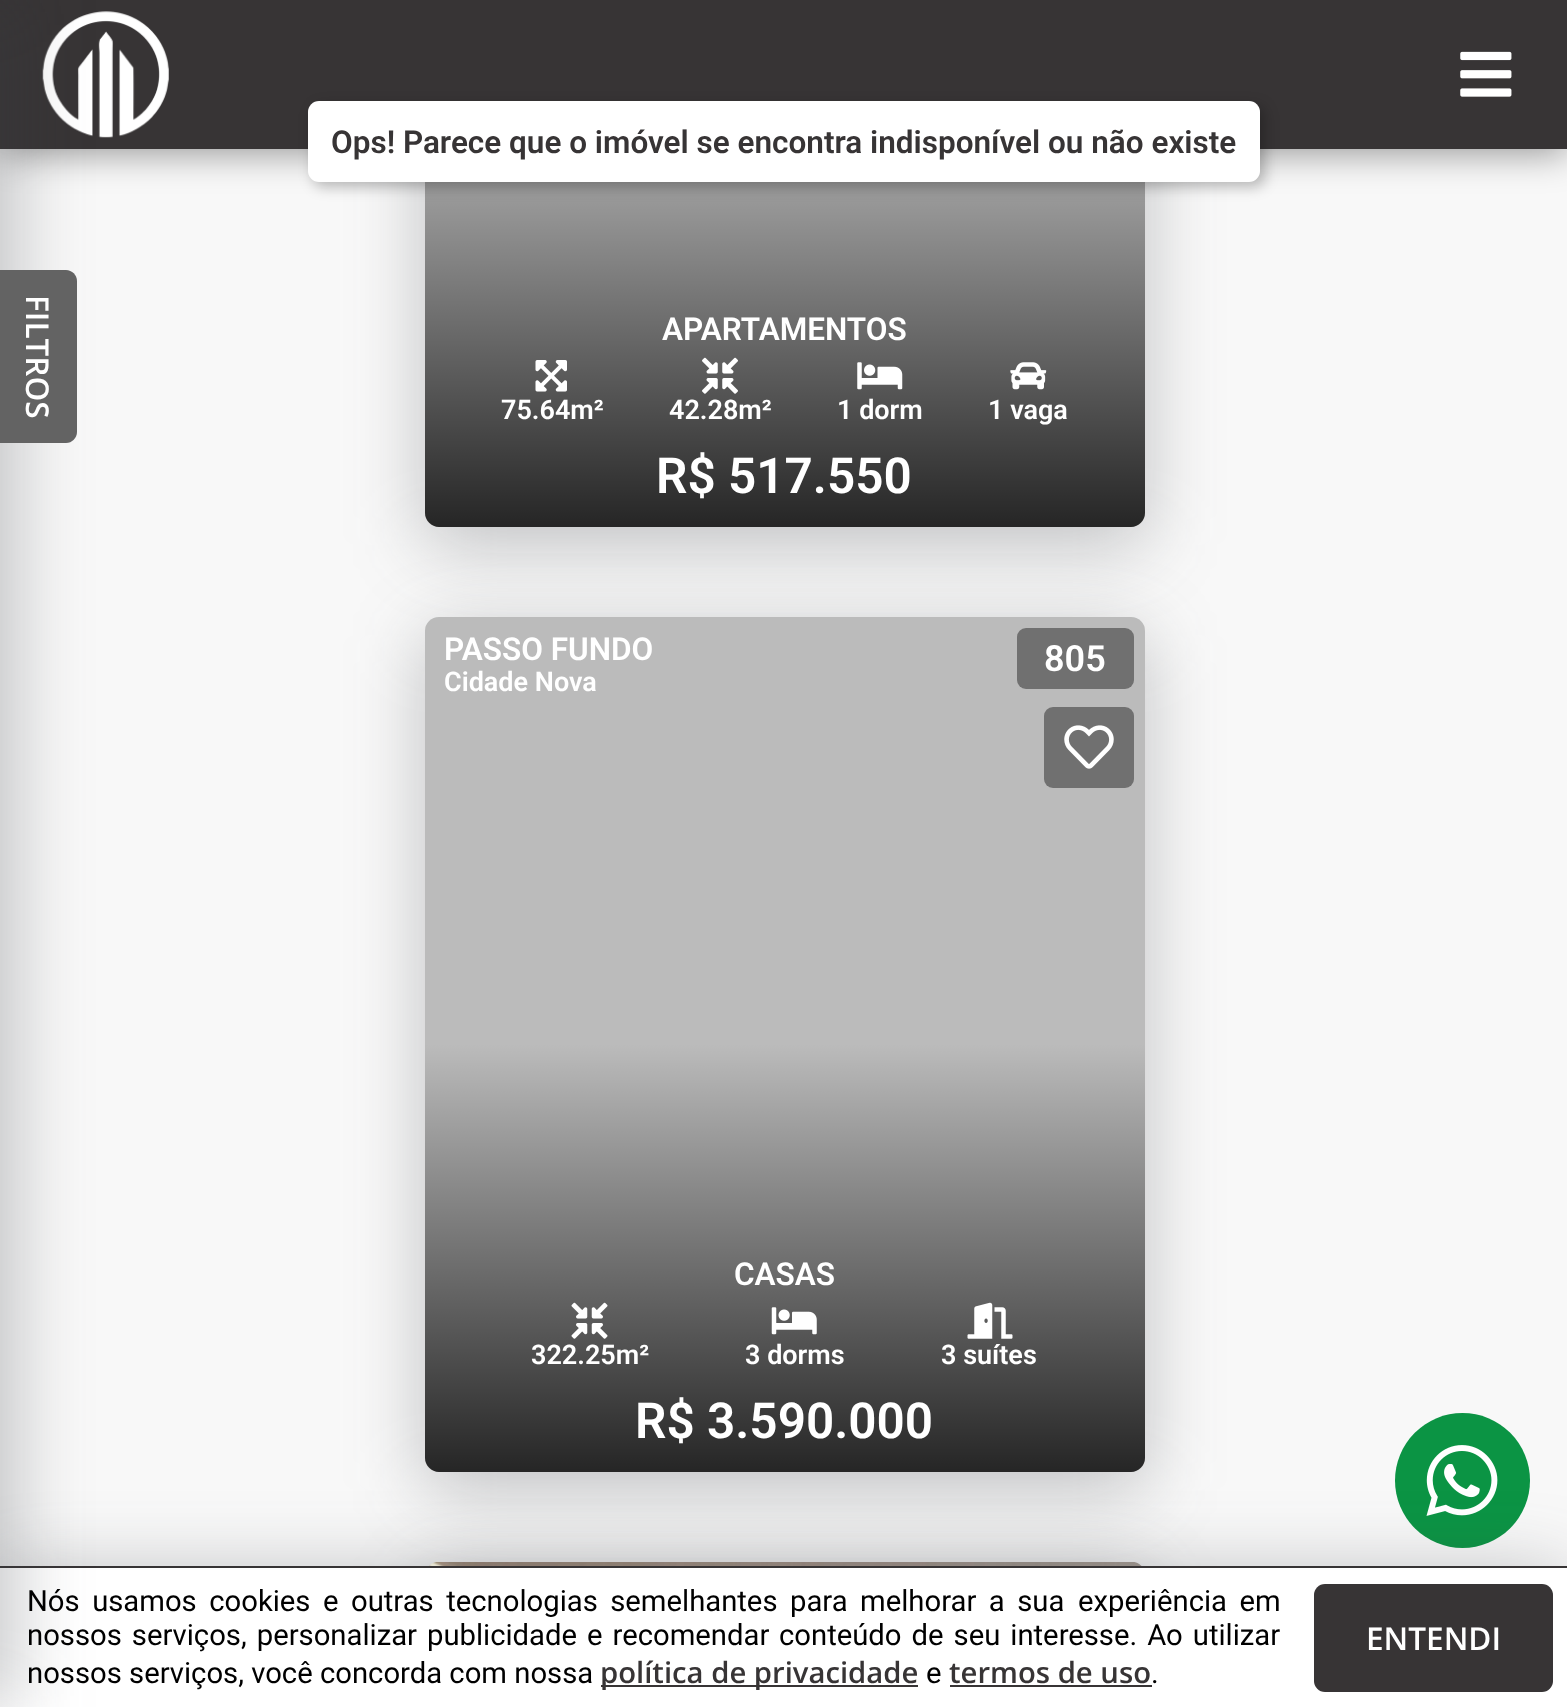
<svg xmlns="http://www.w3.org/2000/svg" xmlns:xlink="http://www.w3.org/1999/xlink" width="1567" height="1707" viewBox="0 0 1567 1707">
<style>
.cls-1{font:600 31.5px Roboto;fill:#373435}
.cls-2{font:600 31.5px Open Sans;fill:#ffffff}
.cls-3{font:600 31.5px Roboto;fill:#ffffff}
.cls-4{font:600 27px Roboto;fill:#ffffff}
.cls-5{font:600 49.5px Roboto;fill:#ffffff}
.cls-6{font:600 36px Roboto;fill:#ffffff}
.cls-7{font:29.25px Roboto;fill:#000000}
.cls-8{font:600 29.25px Open Sans;fill:#373435}
</style>
<defs>
<linearGradient id="g1" gradientUnits="userSpaceOnUse" x1="785" y1="99" x2="785" y2="527"><stop offset="0" stop-color="#000000" stop-opacity="0"/><stop offset="1" stop-color="#000000" stop-opacity="0.8"/></linearGradient>
<linearGradient id="g2" gradientUnits="userSpaceOnUse" x1="785" y1="1044" x2="785" y2="1472"><stop offset="0" stop-color="#000000" stop-opacity="0"/><stop offset="1" stop-color="#000000" stop-opacity="0.8"/></linearGradient>
</defs>
<rect width="100%" height="100%" fill="#f8f8f8"/>
<rect fill="#3b4047" fill-opacity="0.3" filter="blur(38px)" x="425" y="-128" width="720" height="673" rx="14"/>
<rect fill="#bbbbbb" x="425" y="-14" width="720" height="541" rx="14"/>
<path fill="url(#g1)" d="M425 99H1145V513C1145 520.5 1138.5 527 1131 527H439C431.5 527 425 520.5 425 513Z"/>
<rect fill="#000000" fill-opacity="0.4" filter="blur(18px)" x="0" y="5" width="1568" height="148"/>
<rect fill="#373435" x="0" y="0" width="1567" height="149"/>
<rect fill="#000000" fill-opacity="0.25" filter="blur(7px)" x="313" y="106" width="952" height="81" rx="11"/>
<rect fill="#ffffff" x="308" y="101" width="952" height="81" rx="11"/>
<image xlink:href="image0.png" x="42" y="11" width="127" height="127"/>
<image xlink:href="image1.png" x="1460" y="51" width="52" height="46"/>
<rect fill="#3b4047" fill-opacity="0.3" filter="blur(38px)" x="425" y="635" width="720" height="855" rx="14"/>
<rect fill="#bbbbbb" x="425" y="617" width="720" height="855" rx="14"/>
<path fill="url(#g2)" d="M425 1044H1145V1458C1145 1465.5 1138.5 1472 1131 1472H439C431.5 1472 425 1465.5 425 1458Z"/>
<rect fill="#3b4047" fill-opacity="0.3" filter="blur(38px)" x="425" y="1580" width="720" height="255" rx="14"/>
<image xlink:href="image10.png" x="429" y="1562" width="713" height="4"/>
<circle fill="#0b9444" cx="1462.5" cy="1480.5" r="67.5"/>
<image xlink:href="image11.png" x="1426" y="1445" width="72" height="71"/>
<rect fill="#3b4047" fill-opacity="0.3" filter="blur(38px)" x="0" y="1573" width="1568" height="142"/>
<rect fill="#ffffff" x="0" y="1568" width="1567" height="139"/>
<rect fill="#373435" x="0" y="1566" width="1567" height="2"/>
<rect fill="#3b4047" fill-opacity="0.3" filter="blur(38px)" x="-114" y="0" width="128" height="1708"/>
<path fill="#636363" d="M0 270H66C72 270 77 275 77 281V432C77 438 72 443 66 443H0Z"/>
<image xlink:href="image2.png" x="535" y="360" width="32" height="32"/>
<image xlink:href="image3.png" x="702" y="357" width="36" height="37"/>
<image xlink:href="image4.png" x="857" y="362" width="46" height="28"/>
<image xlink:href="image5.png" x="1010" y="362" width="37" height="28"/>
<rect fill="#707070" x="1017" y="628" width="117" height="61" rx="9"/>
<image xlink:href="image6.png" x="571" y="1302" width="37" height="37"/>
<image xlink:href="image7.png" x="771" y="1307" width="46" height="28"/>
<image xlink:href="image8.png" x="967" y="1302" width="46" height="37"/>
<rect fill="#707070" x="1044" y="707" width="90" height="81" rx="9"/>
<image xlink:href="image9.png" x="1064" y="725" width="50" height="44"/>
<rect fill="#373435" x="601" y="1685" width="317" height="2"/>
<rect fill="#373435" x="950" y="1685" width="202" height="2"/>
<rect fill="#373435" x="1314" y="1584" width="239" height="108" rx="11"/>
<text class="cls-1" x="331" y="153">Ops! Parece que o imóvel se encontra indisponível ou não existe</text>
<text class="cls-2" x="26" y="295" transform="rotate(90 26 295)">FILTROS</text>
<text class="cls-3" x="662" y="340">APARTAMENTOS</text>
<text class="cls-4" x="501" y="419">75.64m²</text>
<text class="cls-4" x="669" y="419">42.28m²</text>
<text class="cls-4" x="837" y="419">1 dorm</text>
<text class="cls-4" x="988" y="419">1 vaga</text>
<text class="cls-5" x="656" y="493">R$ 517.550</text>
<text class="cls-3" x="444" y="660">PASSO FUNDO</text>
<text class="cls-4" x="444" y="691">Cidade Nova</text>
<text class="cls-6" x="1044" y="671">805</text>
<text class="cls-3" x="734" y="1285">CASAS</text>
<text class="cls-4" x="531" y="1364">322.25m²</text>
<text class="cls-4" x="745" y="1364">3 dorms</text>
<text class="cls-4" x="941" y="1364">3 suítes</text>
<text class="cls-5" x="635" y="1438">R$ 3.590.000</text>
<text class="cls-7" x="27" y="1611" word-spacing="5.25">Nós usamos cookies e outras tecnologias semelhantes para melhorar a sua</text>
<text class="cls-7" x="1078" y="1611" word-spacing="5.25">experiência em</text>
<text class="cls-7" x="27" y="1645" word-spacing="2.75">nossos serviços, personalizar publicidade e recomendar</text>
<text class="cls-7" x="779" y="1645" word-spacing="2.75">conteúdo de seu interesse. Ao utilizar</text>
<text class="cls-7" x="27" y="1683">nossos serviços, você concorda com nossa</text>
<text class="cls-8" x="600" y="1683">política de privacidade</text>
<text class="cls-7" x="926" y="1683">e</text>
<text class="cls-8" x="949" y="1683">termos de uso</text>
<text class="cls-7" x="1151" y="1683">.</text>
<text class="cls-2" x="1366" y="1650">ENTENDI</text>
</svg>
